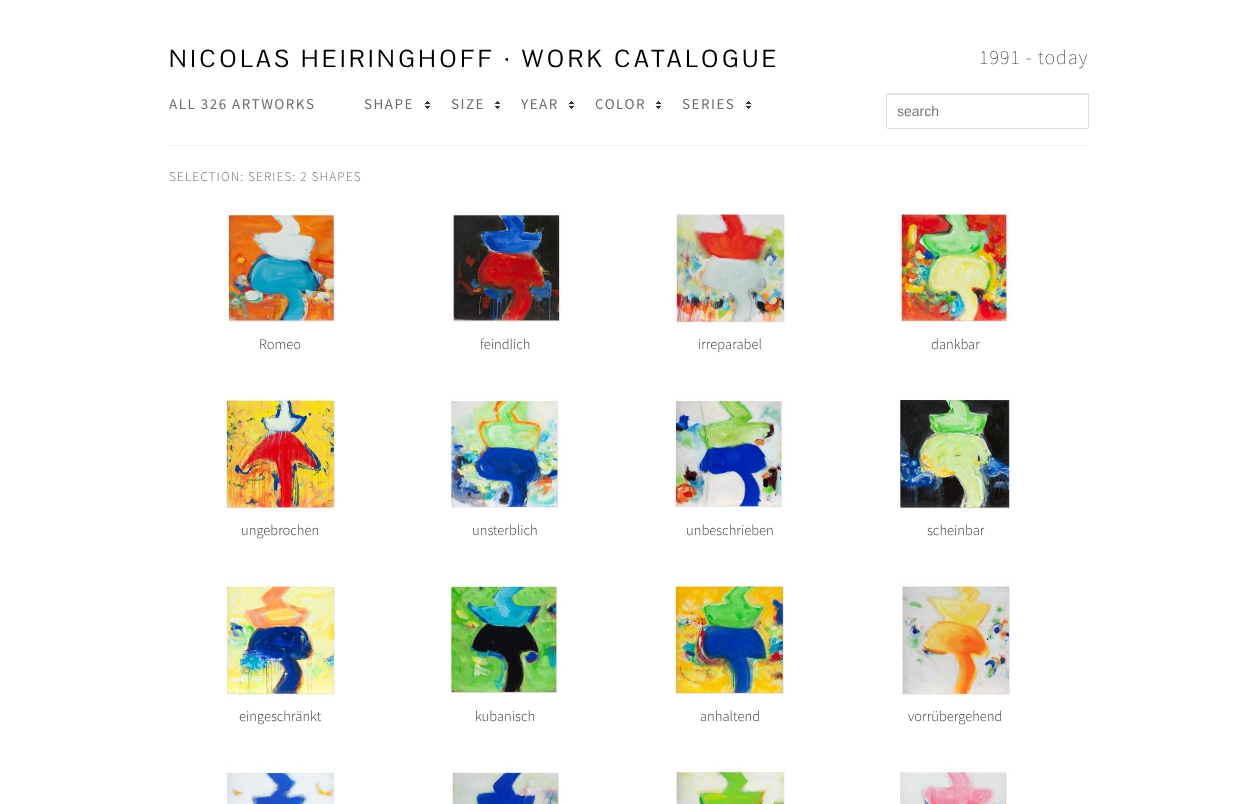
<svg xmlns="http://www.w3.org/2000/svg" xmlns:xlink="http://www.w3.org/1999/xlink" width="1257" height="804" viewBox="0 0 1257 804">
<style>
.cls-1{font:24px Pontano Sans;letter-spacing:3.6px;fill:#000000}
.cls-2{font:200 20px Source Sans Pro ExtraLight;letter-spacing:1px;fill:#373737}
.cls-3{font:15px Source Sans Pro;letter-spacing:1.5px;fill:#6b6b6b}
.cls-4{font:14px Liberation Sans;fill:#757575}
.cls-5{font:300 13.3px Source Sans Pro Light;letter-spacing:1.1px;fill:#6b6b6b}
.cls-6{font:300 14.5px Source Sans Pro Light;fill:#373737}
</style>
<rect width="100%" height="100%" fill="#ffffff"/>
<image xlink:href="image0.png" x="425" y="101" width="5" height="8"/>
<image xlink:href="image0.png" x="495" y="101" width="5" height="8"/>
<image xlink:href="image0.png" x="569" y="101" width="5" height="8"/>
<image xlink:href="image0.png" x="656" y="101" width="5" height="8"/>
<image xlink:href="image0.png" x="746" y="101" width="5" height="8"/>
<path fill="#e6e6e6" d="M888 95H1088V96C1088 95 1088 94 1087 94H887V96C887 95 887 95 888 95Z"/>
<rect fill="none" stroke="#dddddd" x="886.5" y="93.5" width="202" height="35" rx="1.5"/>
<path fill="none" stroke="#e7e7e7" stroke-dasharray="1 1" d="M169 145.5H1089"/>
<image xlink:href="image1.png" x="224" y="209" width="113" height="113"/>
<image xlink:href="image2.png" x="449" y="209" width="113" height="113"/>
<image xlink:href="image3.png" x="674" y="209" width="113" height="117"/>
<image xlink:href="image4.png" x="898" y="209" width="114" height="113"/>
<image xlink:href="image5.png" x="223" y="395" width="114" height="117"/>
<image xlink:href="image6.png" x="448" y="395" width="114" height="113"/>
<image xlink:href="image7.png" x="674" y="395" width="112" height="113"/>
<image xlink:href="image8.png" x="899" y="395" width="112" height="117"/>
<image xlink:href="image9.png" x="224" y="581" width="113" height="117"/>
<image xlink:href="image10.png" x="449" y="581" width="112" height="113"/>
<image xlink:href="image11.png" x="673" y="581" width="114" height="113"/>
<image xlink:href="image12.png" x="899" y="581" width="113" height="117"/>
<image xlink:href="image13.png" x="224" y="767" width="112" height="37"/>
<image xlink:href="image14.png" x="449" y="767" width="113" height="37"/>
<image xlink:href="image15.png" x="674" y="767" width="111" height="37"/>
<image xlink:href="image16.png" x="900" y="767" width="109" height="37"/>
<text class="cls-1" x="169" y="67">NICOLAS HEIRINGHOFF · WORK CATALOGUE</text>
<text class="cls-2" x="979" y="64">1991 - today</text>
<text class="cls-3" x="169" y="109">ALL 326 ARTWORKS</text>
<text class="cls-3" x="364" y="109">SHAPE</text>
<text class="cls-3" x="451" y="109">SIZE</text>
<text class="cls-3" x="521" y="109">YEAR</text>
<text class="cls-3" x="595" y="109">COLOR</text>
<text class="cls-3" x="682" y="109">SERIES</text>
<text class="cls-4" x="897" y="116">search</text>
<text class="cls-5" x="169" y="181">SELECTION: SERIES: 2 SHAPES</text>
<text class="cls-6" x="259" y="349">Romeo</text>
<text class="cls-6" x="480" y="349">feindlich</text>
<text class="cls-6" x="698" y="349">irreparabel</text>
<text class="cls-6" x="931" y="349">dankbar</text>
<text class="cls-6" x="241" y="535">ungebrochen</text>
<text class="cls-6" x="472" y="535">unsterblich</text>
<text class="cls-6" x="686" y="535">unbeschrieben</text>
<text class="cls-6" x="927" y="535">scheinbar</text>
<text class="cls-6" x="239" y="721">eingeschränkt</text>
<text class="cls-6" x="475" y="721">kubanisch</text>
<text class="cls-6" x="700" y="721">anhaltend</text>
<text class="cls-6" x="908" y="721">vorrübergehend</text>
</svg>
